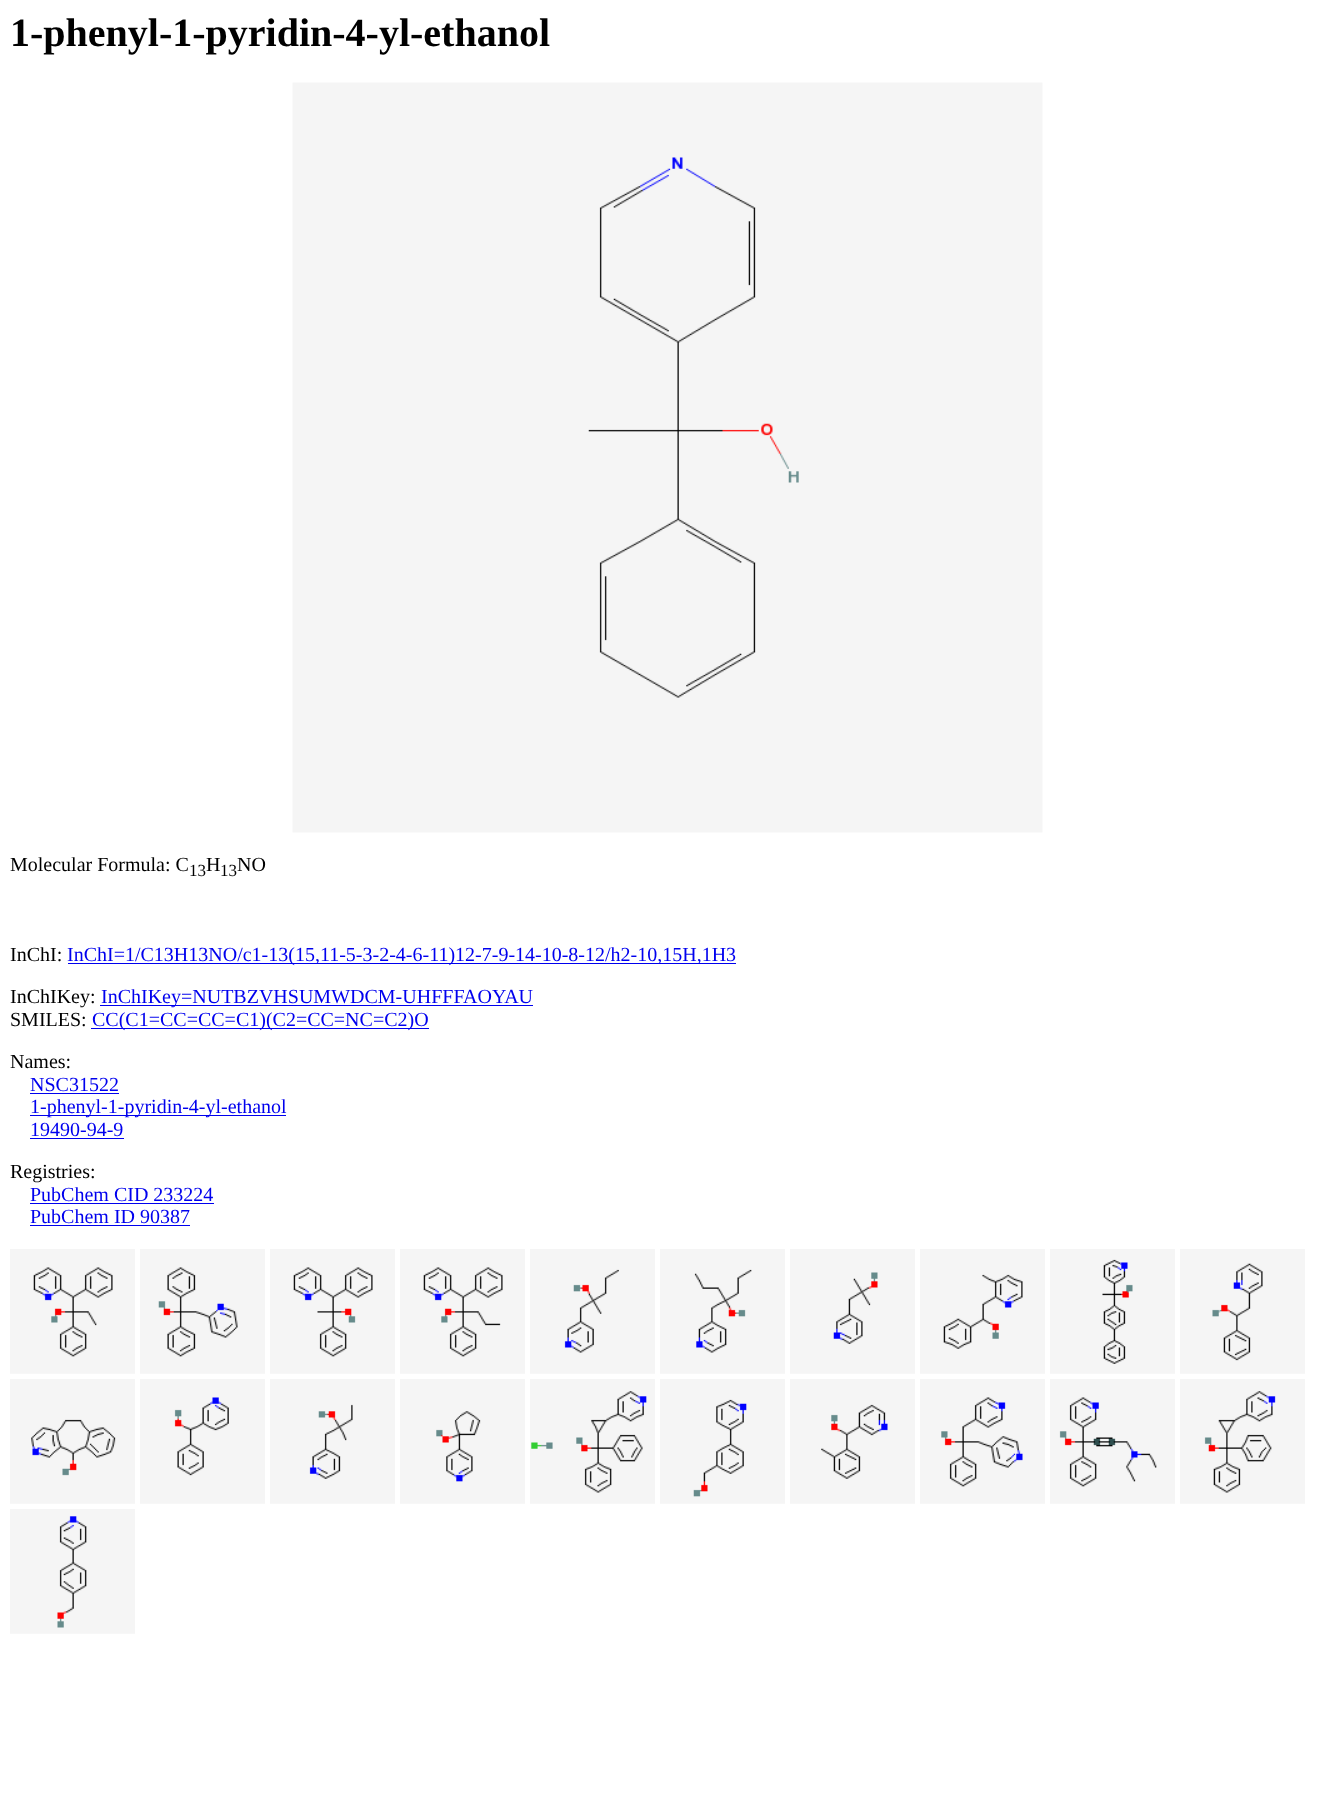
<svg xmlns="http://www.w3.org/2000/svg" xmlns:xlink="http://www.w3.org/1999/xlink" width="1334" height="1801" viewBox="0 0 1334 1801">
<style>
.cls-1{font:bold 40px Liberation Serif;fill:#000000}
.cls-2{font:20px Liberation Serif;fill:#000000}
.cls-3{font:17px Liberation Serif;fill:#000000}
.cls-4{font:20px Liberation Serif;fill:#0000ee}
</style>
<rect width="100%" height="100%" fill="#ffffff"/>
<image xlink:href="image0.png" x="292" y="82" width="751" height="751"/>
<rect fill="#0000ee" x="68" y="963" width="668" height="1"/>
<rect fill="#0000ee" x="100" y="1005" width="433" height="1"/>
<rect fill="#0000ee" x="91" y="1028" width="338" height="1"/>
<rect fill="#0000ee" x="30" y="1093" width="89" height="1"/>
<rect fill="#0000ee" x="30" y="1115" width="256" height="1"/>
<rect fill="#0000ee" x="30" y="1138" width="94" height="1"/>
<rect fill="#0000ee" x="30" y="1203" width="184" height="1"/>
<rect fill="#0000ee" x="30" y="1225" width="160" height="1"/>
<image xlink:href="image1.png" x="10" y="1249" width="125" height="125"/>
<image xlink:href="image2.png" x="140" y="1249" width="125" height="125"/>
<image xlink:href="image3.png" x="270" y="1249" width="125" height="125"/>
<image xlink:href="image4.png" x="400" y="1249" width="125" height="125"/>
<image xlink:href="image5.png" x="530" y="1249" width="125" height="125"/>
<image xlink:href="image6.png" x="660" y="1249" width="125" height="125"/>
<image xlink:href="image7.png" x="790" y="1249" width="125" height="125"/>
<image xlink:href="image8.png" x="920" y="1249" width="125" height="125"/>
<image xlink:href="image9.png" x="1050" y="1249" width="125" height="125"/>
<image xlink:href="image10.png" x="1180" y="1249" width="125" height="125"/>
<image xlink:href="image11.png" x="10" y="1379" width="125" height="125"/>
<image xlink:href="image12.png" x="140" y="1379" width="125" height="125"/>
<image xlink:href="image13.png" x="270" y="1379" width="125" height="125"/>
<image xlink:href="image14.png" x="400" y="1379" width="125" height="125"/>
<image xlink:href="image15.png" x="530" y="1379" width="125" height="125"/>
<image xlink:href="image16.png" x="660" y="1379" width="125" height="125"/>
<image xlink:href="image17.png" x="790" y="1379" width="125" height="125"/>
<image xlink:href="image18.png" x="920" y="1379" width="125" height="125"/>
<image xlink:href="image19.png" x="1050" y="1379" width="125" height="125"/>
<image xlink:href="image20.png" x="1180" y="1379" width="125" height="125"/>
<image xlink:href="image21.png" x="10" y="1509" width="125" height="125"/>
<text class="cls-1" x="10" y="46">1-phenyl-1-pyridin-4-yl-ethanol</text>
<text class="cls-2" x="10" y="871">Molecular Formula: C</text>
<text class="cls-3" x="189" y="876">13</text>
<text class="cls-2" x="206" y="871">H</text>
<text class="cls-3" x="220" y="876">13</text>
<text class="cls-2" x="237" y="871">NO</text>
<text class="cls-2" x="10" y="961">InChI:</text>
<text class="cls-4" x="67" y="961">InChI=1/C13H13NO/c1-13(15,11-5-3-2-4-6-11)12-7-9-14-10-8-12/h2-10,15H,1H3</text>
<text class="cls-2" x="10" y="1003">InChIKey:</text>
<text class="cls-4" x="101" y="1003">InChIKey=NUTBZVHSUMWDCM-UHFFFAOYAU</text>
<text class="cls-2" x="10" y="1026">SMILES:</text>
<text class="cls-4" x="92" y="1026">CC(C1=CC=CC=C1)(C2=CC=NC=C2)O</text>
<text class="cls-2" x="10" y="1068">Names:</text>
<text class="cls-4"><tspan x="30" y="1091">NSC31522</tspan><tspan x="30" y="1113">1-phenyl-1-pyridin-4-yl-ethanol</tspan><tspan x="30" y="1136">19490-94-9</tspan></text>
<text class="cls-2" x="10" y="1178">Registries:</text>
<text class="cls-4"><tspan x="30" y="1201">PubChem CID 233224</tspan><tspan x="30" y="1223">PubChem ID 90387</tspan></text>
</svg>
